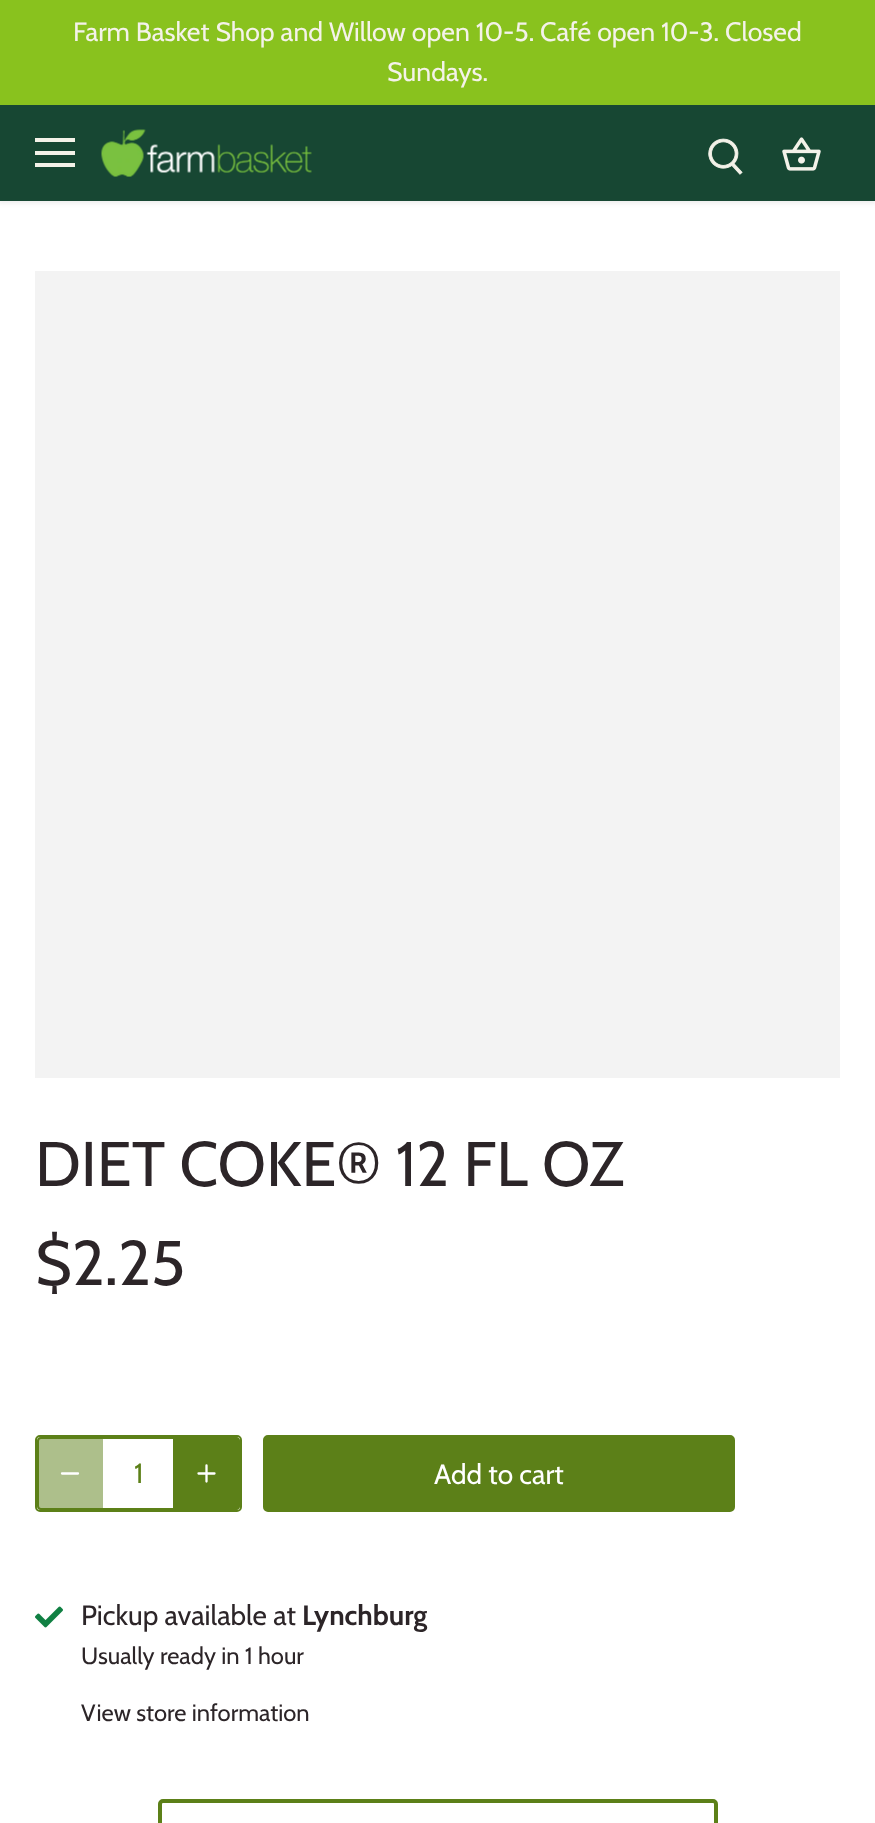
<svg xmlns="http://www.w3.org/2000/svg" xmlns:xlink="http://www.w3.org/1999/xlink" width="875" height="1823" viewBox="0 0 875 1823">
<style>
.cls-1{font:26.6px Cabin;fill:#f4f2e9}
.cls-2{font:63px Cabin;fill:#2c2528}
.cls-3{font:28px Cabin;fill:#5c8018}
.cls-4{font:28px Cabin;fill:#ffffff}
.cls-5{font:28px Cabin;fill:#2c2528}
.cls-6{font:bold 28px Cabin;fill:#2c2528}
.cls-7{font:23.75px Cabin;fill:#2c2528}
</style>
<defs>
<clipPath id="clip1"><rect x="37" y="1437" width="203" height="73" rx="4"/></clipPath>
</defs>
<rect width="100%" height="100%" fill="#ffffff"/>
<rect fill="#000000" fill-opacity="0.08" filter="blur(2.5px)" x="-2" y="103" width="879" height="100"/>
<rect fill="#89c21e" x="0" y="0" width="875" height="105"/>
<rect fill="#174733" x="0" y="105" width="875" height="96"/>
<rect fill="#f4f2e9" x="35" y="138" width="40" height="4"/>
<rect fill="#f4f2e9" x="35" y="151" width="40" height="4"/>
<rect fill="#f4f2e9" x="35" y="163" width="40" height="4"/>
<image xlink:href="image0.png" x="101" y="129" width="211" height="48"/>
<image xlink:href="image1.png" x="708" y="138" width="35" height="37"/>
<image xlink:href="image2.png" x="782" y="137" width="39" height="34"/>
<rect fill="#f3f3f3" x="35" y="271" width="805" height="807"/>
<rect fill="none" stroke="#5c8018" stroke-width="2" x="38" y="1438" width="201" height="71" rx="3"/>
<rect fill="none" stroke="#5c8018" stroke-width="2" x="36" y="1436" width="205" height="75" rx="4"/>
<path fill="#5c8018" fill-opacity="0.5" d="M42 1437H103V1510H42C39 1510 37 1508 37 1505V1442C37 1439 39 1437 42 1437Z"/>
<path fill="none" stroke="#ffffff" stroke-width="2.3" stroke-linecap="round" stroke-linejoin="round" d="M62 1473.5H78"/>
<g clip-path="url(#clip1)">
<path fill="#5c8018" d="M173 1437H235C238 1437 240 1439 240 1442V1505C240 1508 238 1510 235 1510H173Z"/>
</g>
<path fill="none" stroke="#ffffff" stroke-width="2.3" stroke-linecap="round" stroke-linejoin="round" d="M206.5 1465.5V1481.5M198.5 1473.5H214.5"/>
<rect fill="#5c8018" stroke="#5c8018" stroke-width="4" x="265" y="1437" width="468" height="73" rx="3"/>
<image xlink:href="image3.png" x="35" y="1606" width="28" height="22"/>
<rect fill="none" stroke="#5c8018" stroke-width="4" x="160" y="1801" width="556" height="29" rx="3"/>
<text class="cls-1" x="73" y="41">Farm Basket Shop and Willow open 10-5.</text>
<text class="cls-1" x="540" y="41">Café open 10-3. Closed</text>
<text class="cls-1" x="387" y="81">Sundays.</text>
<text class="cls-2"><tspan x="35" y="1186">DIET COKE® 12 FL OZ</tspan><tspan x="35" y="1285">$2.25</tspan></text>
<text class="cls-3" x="134" y="1483">1</text>
<text class="cls-4" x="434" y="1484">Add to cart</text>
<text class="cls-5" x="81" y="1625">Pickup available at</text>
<text class="cls-6" x="302" y="1625">Lynchburg</text>
<text class="cls-7" x="81" y="1664">Usually ready in 1 hour</text>
<text class="cls-7" x="81" y="1721">View store information</text>
</svg>
